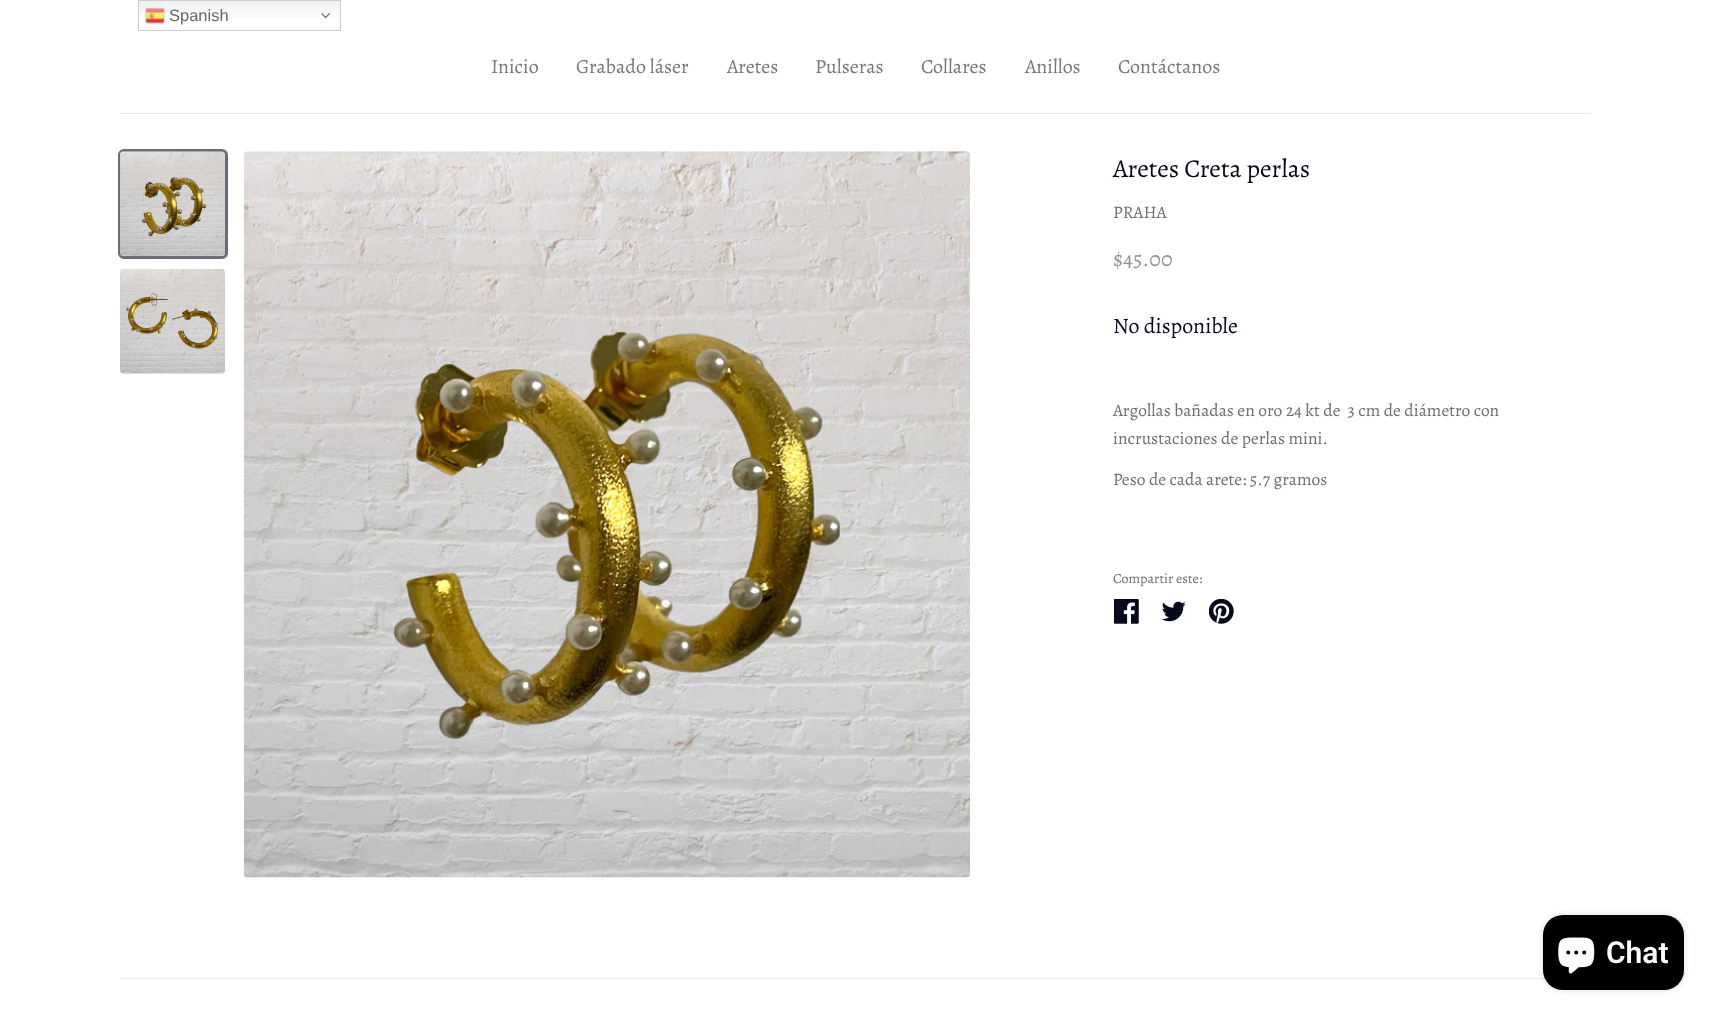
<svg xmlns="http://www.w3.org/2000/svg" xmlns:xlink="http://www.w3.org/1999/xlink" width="1711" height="1016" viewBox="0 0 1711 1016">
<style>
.cls-1{font:16.5px Liberation Sans;fill:#666666}
.cls-2{font:20px Alegreya;fill:#777777}
.cls-3{font:25.75px Alegreya;fill:#080a1c}
.cls-4{font:17.5px Alegreya;fill:#6b6c77}
.cls-5{font:22px Alegreya;fill:#939393}
.cls-6{font:22px Alegreya;fill:#080a1c}
.cls-7{font:14px Alegreya;fill:#6b6c77}
.cls-8{font:600 30px Roboto;fill:#ffffff}
</style>
<defs>
<linearGradient id="g1" gradientUnits="userSpaceOnUse" x1="239" y1="0" x2="239" y2="31"><stop offset="0" stop-color="#efefef"/><stop offset="0.7" stop-color="#ffffff"/></linearGradient>
</defs>
<rect width="100%" height="100%" fill="#ffffff"/>
<rect fill="url(#g1)" x="139" y="1" width="201" height="17"/>
<rect fill="none" stroke="#cccccc" x="138.5" y="0.5" width="202" height="30"/>
<image xlink:href="image0.png" x="145" y="7" width="20" height="18"/>
<image xlink:href="image1.png" x="321" y="13" width="9" height="6"/>
<rect fill="#e9e9eb" x="120" y="113" width="1471" height="1"/>
<rect fill="none" stroke="#6b6c77" stroke-width="3" x="119.5" y="150.5" width="107" height="107" rx="4.5"/>
<image xlink:href="image2.png" x="120" y="151" width="105" height="106"/>
<image xlink:href="image3.png" x="120" y="269" width="105" height="105"/>
<image xlink:href="image4.png" x="243" y="151" width="727" height="727"/>
<image xlink:href="image5.png" x="1114" y="599" width="25" height="25"/>
<image xlink:href="image6.png" x="1161" y="601" width="25" height="21"/>
<image xlink:href="image7.png" x="1209" y="599" width="25" height="25"/>
<rect fill="#e9e9eb" x="120" y="978" width="1426" height="1"/>
<rect fill="#000000" fill-opacity="0.15" filter="blur(3px)" x="1543" y="915" width="141" height="75" rx="20"/>
<rect fill="#000000" x="1543" y="915" width="141" height="75" rx="20"/>
<image xlink:href="image8.png" x="1558" y="937" width="37" height="37"/>
<text class="cls-1" x="169" y="21">Spanish</text>
<text class="cls-2" x="491" y="73">Inicio</text>
<text class="cls-2" x="576" y="73">Grabado láser</text>
<text class="cls-2" x="727" y="73">Aretes</text>
<text class="cls-2" x="815" y="73">Pulseras</text>
<text class="cls-2" x="921" y="73">Collares</text>
<text class="cls-2" x="1025" y="73">Anillos</text>
<text class="cls-2" x="1118" y="73">Contáctanos</text>
<text class="cls-3" x="1113" y="177">Aretes Creta perlas</text>
<text class="cls-4" x="1113" y="218">PRAHA</text>
<text class="cls-5" x="1113" y="266">$45.00</text>
<text class="cls-6" x="1113" y="333">No disponible</text>
<text class="cls-4" xml:space="preserve"><tspan x="1113" y="416">Argollas bañadas en oro 24 kt de  3 cm de diámetro con</tspan><tspan x="1113" y="444">incrustaciones de perlas mini.</tspan></text>
<text class="cls-4" x="1113" y="485">Peso de cada arete: 5.7 gramos</text>
<text class="cls-7" x="1113" y="583">Compartir este:</text>
<text class="cls-8" x="1606" y="963">Chat</text>
</svg>
